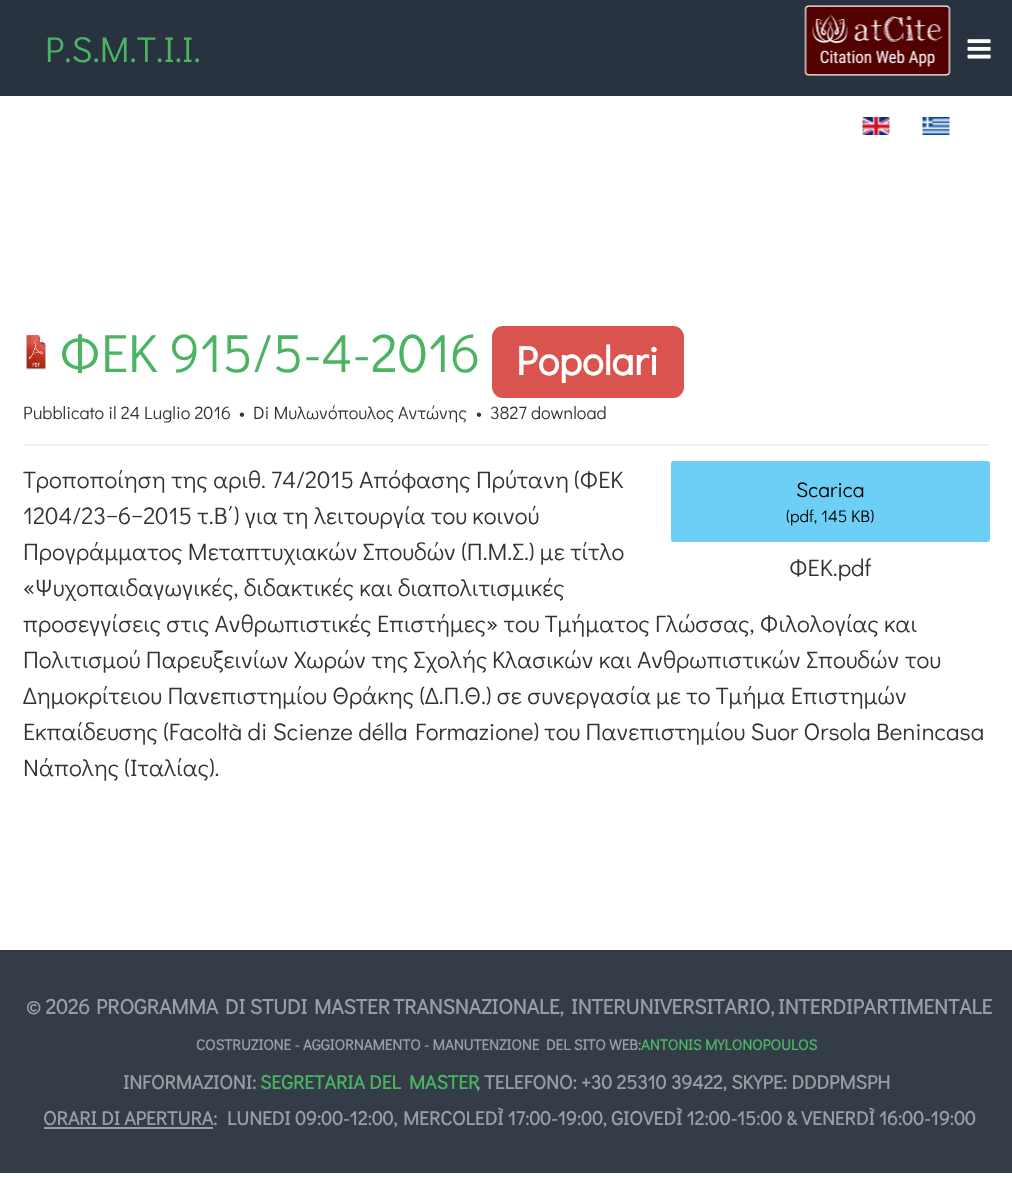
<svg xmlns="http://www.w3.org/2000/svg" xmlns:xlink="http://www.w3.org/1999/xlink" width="1012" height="1180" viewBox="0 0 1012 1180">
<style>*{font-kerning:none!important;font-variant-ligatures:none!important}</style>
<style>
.cls-1{font:36px Didact Gothic;fill:#4bb463}
.cls-2{font:54px Didact Gothic;fill:#4bb463}
.cls-3{font:bold 40.5px Didact Gothic;fill:#ffffff}
.cls-4{font:18px Didact Gothic;fill:#333333}
.cls-5{font:24px Didact Gothic;fill:#333333}
.cls-6{font:21px Didact Gothic;fill:#000000}
.cls-7{font:17px Didact Gothic;fill:#000000}
.cls-8{font:bold 21px Didact Gothic;fill:#9a9ea3}
.cls-9{font:bold 15px Didact Gothic;fill:#9a9ea3}
.cls-10{font:bold 15px Didact Gothic;fill:#4bb463}
.cls-11{font:bold 19.5px Didact Gothic;fill:#9a9ea3}
.cls-12{font:bold 19.5px Didact Gothic;fill:#4bb463}
</style>
<rect width="100%" height="100%" fill="#ffffff"/>
<rect fill="#29333f" x="0" y="0" width="1012" height="96"/>
<image xlink:href="image0.png" x="804" y="5" width="147" height="71"/>
<image xlink:href="image1.png" x="967" y="39" width="24" height="20"/>
<image xlink:href="image2.png" x="862" y="117" width="28" height="18"/>
<image xlink:href="image3.png" x="922" y="117" width="28" height="18"/>
<image xlink:href="image4.png" x="26" y="334" width="20" height="36"/>
<rect fill="#d9534f" x="492" y="326" width="192" height="72" rx="11"/>
<rect fill="#f2f2f2" x="23" y="444" width="967" height="2"/>
<rect fill="#6dcff6" x="671" y="461" width="319" height="81" rx="3"/>
<rect fill="#343d47" x="0" y="952" width="1012" height="221"/>
<rect fill="#303841" x="0" y="950" width="1012" height="2"/>
<rect fill="#9a9ea3" x="44" y="1127" width="169" height="2"/>
<text class="cls-1" x="45" y="62">P.S.M.T.I.I.</text>
<text class="cls-2" x="59" y="372">ΦΕΚ 915/5-4-2016</text>
<text class="cls-3" x="516" y="375">Popolari</text>
<text class="cls-4" x="23" y="419">Pubblicato il 24 Luglio 2016</text>
<text class="cls-4" x="239" y="419">•</text>
<text class="cls-4" x="253" y="419">Di Μυλωνόπουλος Αντώνης</text>
<text class="cls-4" x="476" y="419">•</text>
<text class="cls-4" x="490" y="419">3827 download</text>
<text class="cls-5" x="23" y="488">Τροποποίηση της αριθ.</text>
<text class="cls-5" x="271" y="488">74/2015 Απόφασης Πρύτανη</text>
<text class="cls-5" x="574" y="488">(ΦΕΚ</text>
<text class="cls-5"><tspan x="23" y="524">1204/23−6−2015 τ.Β΄) για τη λειτουργία του κοινού</tspan><tspan x="23" y="560">Προγράμματος Μεταπτυχιακών Σπουδών (Π.Μ.Σ.) με τίτλο</tspan><tspan x="23" y="596">«Ψυχοπαιδαγωγικές, διδακτικές και διαπολιτισμικές</tspan><tspan x="23" y="632">προσεγγίσεις στις Ανθρωπιστικές Επιστήμες» του Τμήματος Γλώσσας, Φιλολογίας</tspan></text>
<text class="cls-5" x="884" y="632">και</text>
<text class="cls-5" x="23" y="668">Πολιτισμού Παρευξεινίων Χωρών της Σχολής</text>
<text class="cls-5" x="492" y="668">Κλασικών και Ανθρωπιστικών Σπουδών</text>
<text class="cls-5" x="905" y="668">του</text>
<text class="cls-5" x="23" y="704">Δημοκρίτειου Πανεπιστημίου Θράκης (Δ.Π.Θ.) σε συνεργασία</text>
<text class="cls-5" x="656" y="704">με το Τμήμα Επιστημών</text>
<text class="cls-5" x="23" y="740">Εκπαίδευσης (Facoltà di Scienze délla</text>
<text class="cls-5" x="415" y="740">Formazione) του Πανεπιστημίου Suor Orsola</text>
<text class="cls-5" x="876" y="740">Benincasa</text>
<text class="cls-5" x="23" y="776">Νάπολης (Ιταλίας).</text>
<text class="cls-6" x="796" y="497">Scarica</text>
<text class="cls-7" x="786" y="522">(pdf, 145 KB)</text>
<text class="cls-5" x="789" y="576">ΦΕΚ.pdf</text>
<text class="cls-8" x="26" y="1014">© 2026</text>
<text class="cls-8" x="96" y="1014">PROGRAMMA</text>
<text class="cls-8" x="225" y="1014">DI STUDI</text>
<text class="cls-8" x="314" y="1014">MASTER</text>
<text class="cls-8" x="393" y="1014">TRANSNAZIONALE,</text>
<text class="cls-8" x="571" y="1014">INTERUNIVERSITARIO,</text>
<text class="cls-8" x="778" y="1014">INTERDIPARTIMENTALE</text>
<text class="cls-9" x="196" y="1050">COSTRUZIONE - AGGIORNAMENTO - MANUTENZIONE</text>
<text class="cls-9" x="546" y="1050">DEL SITO WEB:</text>
<text class="cls-10" x="641" y="1050">ANTONIS MYLONOPOULOS</text>
<text class="cls-11" x="123" y="1089">INFORMAZIONI:</text>
<text class="cls-12" x="260" y="1089">SEGRETARIA DEL</text>
<text class="cls-12" x="409" y="1089">MASTER</text>
<text class="cls-11" x="476" y="1089">, TELEFONO: +30 25310 39422, SKYPE: DDDPMSPH</text>
<text class="cls-11" x="43" y="1125">ORARI DI APERTURA:</text>
<text class="cls-11" x="227" y="1125">LUNEDI 09:00-12:00,</text>
<text class="cls-11" x="403" y="1125">MERCOLEDÌ 17:00-19:00, GIOVEDÌ 12:00-15:00 &amp; VENERDÌ 16:00-19:00</text>
</svg>
